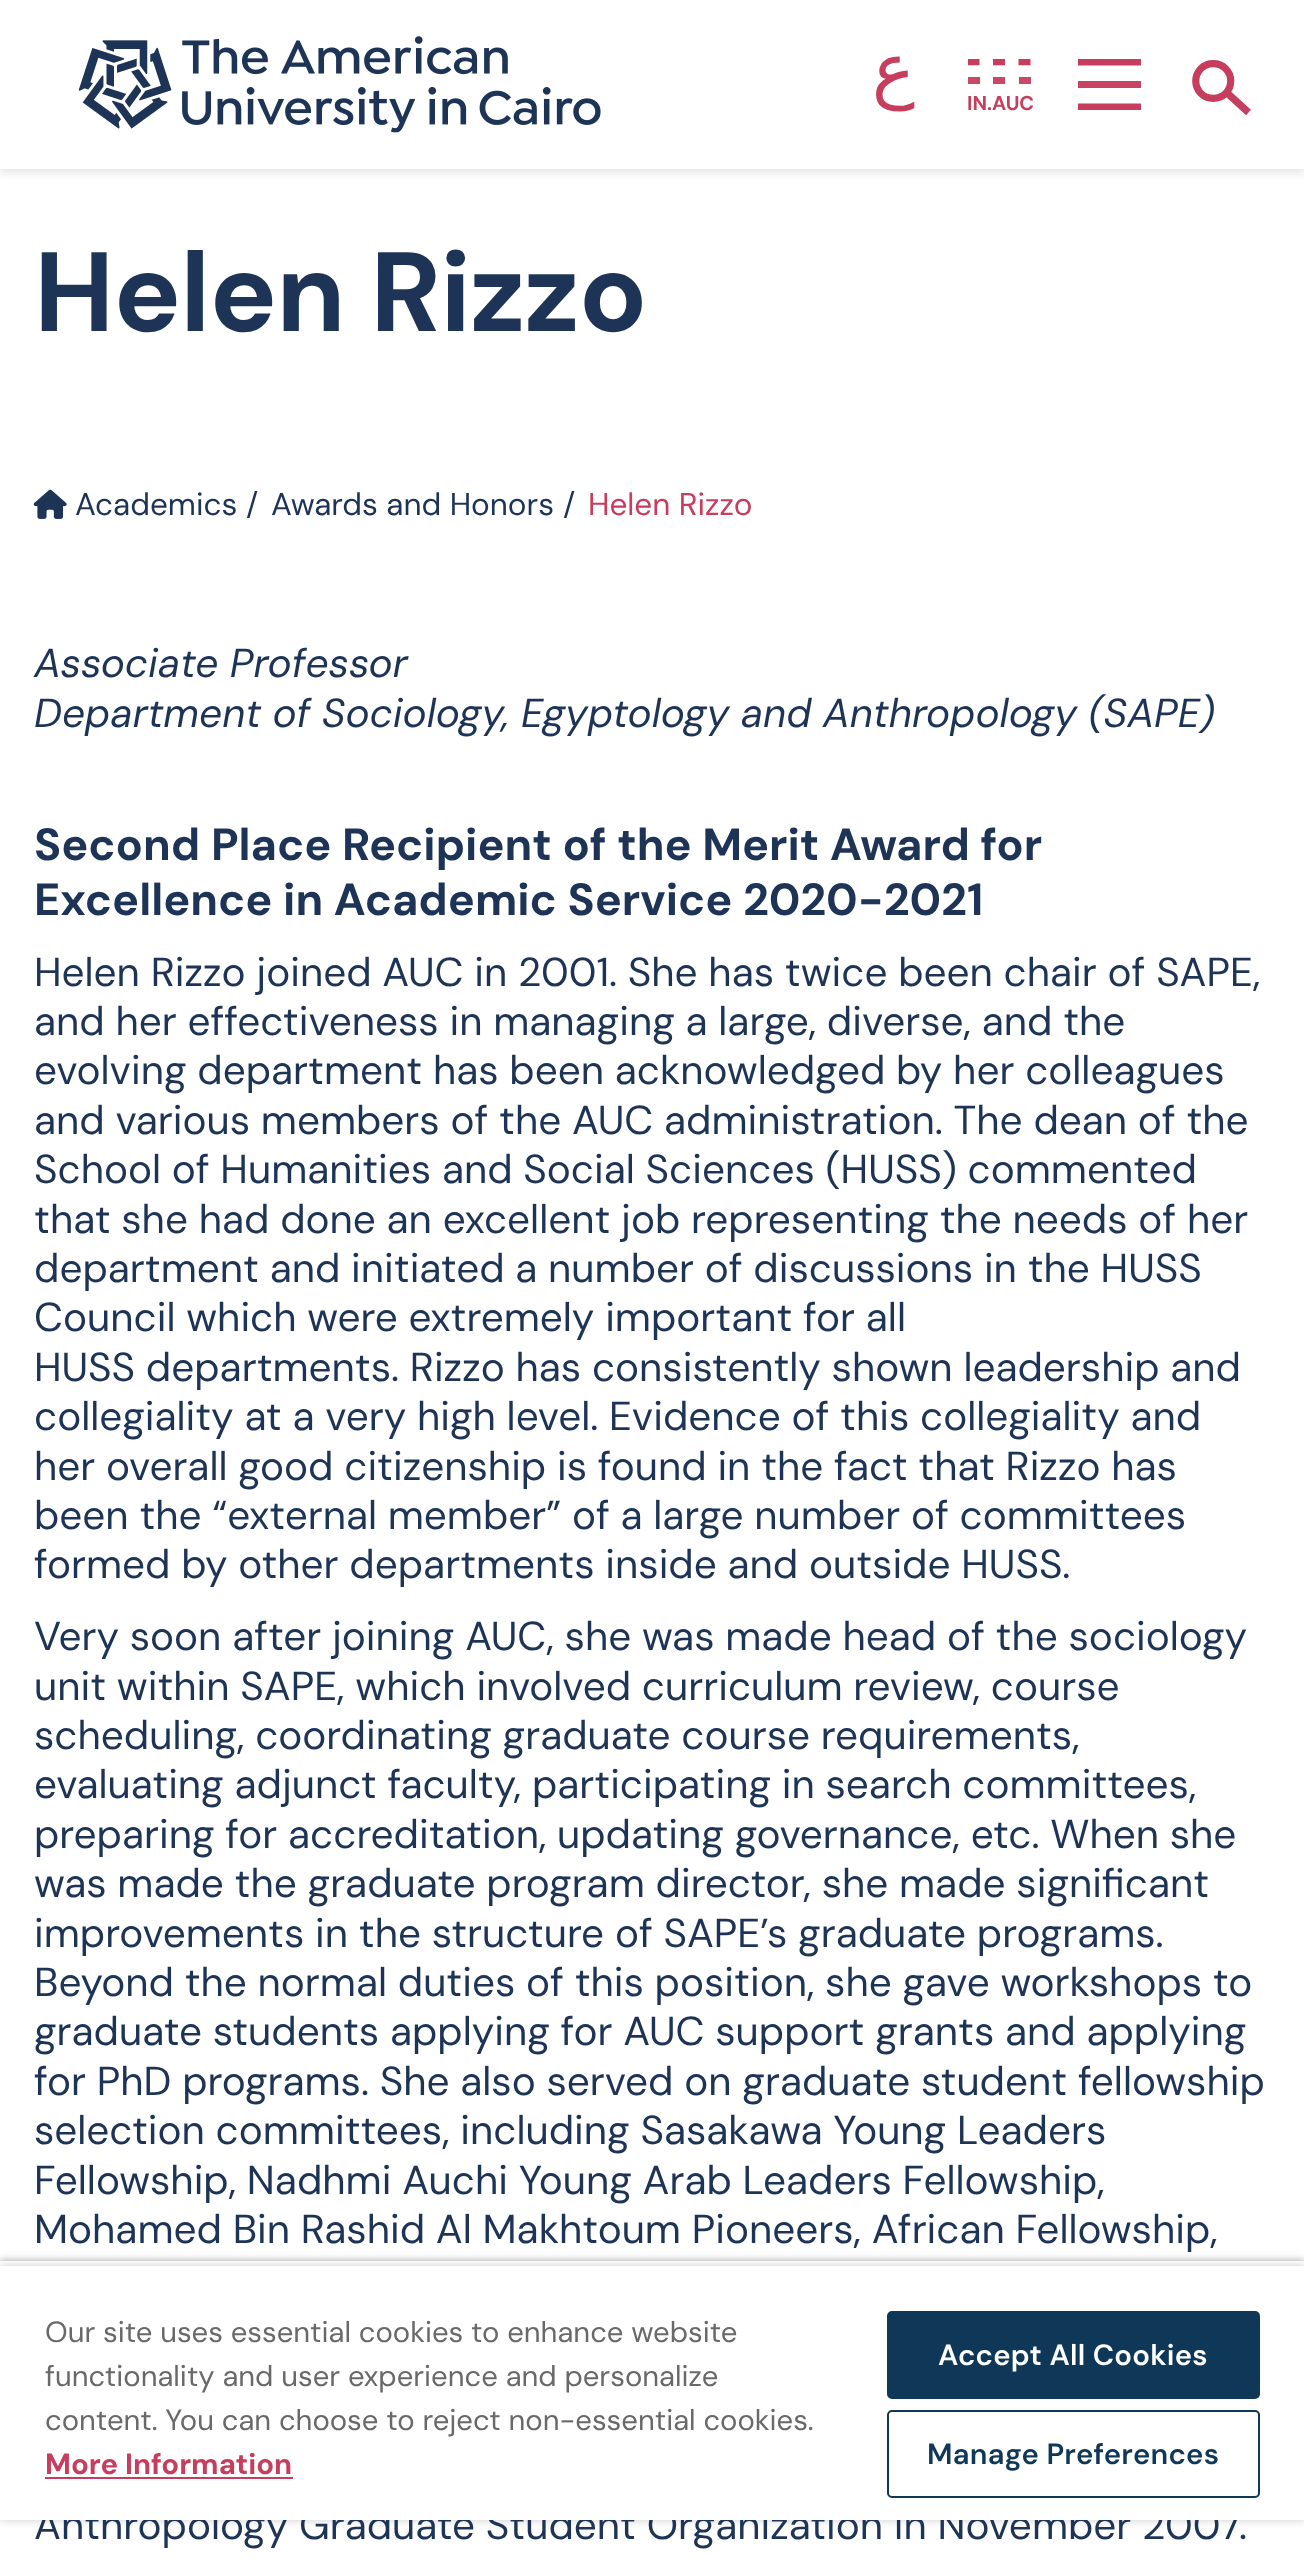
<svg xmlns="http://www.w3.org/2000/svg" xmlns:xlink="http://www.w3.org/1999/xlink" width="1304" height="2563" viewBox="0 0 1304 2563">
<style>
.cls-1{font:72px DejaVu Sans;direction:rtl;fill:#c73d5e}
.cls-2{font:bold 20px DM Sans;fill:#c73d5e}
.cls-3{font:bold 112.5px DM Sans;letter-spacing:-0.9px;fill:#1d3456}
.cls-4{font:31.5px DM Sans;fill:#1d3456}
.cls-5{font:31.5px DM Sans;fill:#c73d5e}
.cls-6{font:italic 40.5px DM Sans;fill:#1d3456}
.cls-7{font:bold 45px DM Sans;fill:#1d3456}
.cls-8{font:40.5px DM Sans;fill:#1d3456}
.cls-9{font:29.25px DM Sans;fill:#696969}
.cls-10{font:bold 29.25px DM Sans;fill:#c73d5e}
.cls-11{font:600 29.25px DM Sans;letter-spacing:0.25px;fill:#ffffff}
.cls-12{font:600 29.25px DM Sans;letter-spacing:0.25px;fill:#0f3858}
</style>
<defs>
<clipPath id="clip1"><path d="M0 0H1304V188H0ZM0 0H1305V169H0Z" clip-rule="evenodd"/></clipPath>
<clipPath id="clip2"><rect x="968" y="59" width="63" height="27"/></clipPath>
<clipPath id="clip3"><rect x="1078" y="59" width="63" height="51"/></clipPath>
<clipPath id="clip4"><path d="M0 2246H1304V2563H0ZM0 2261H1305V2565H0Z" clip-rule="evenodd"/></clipPath>
</defs>
<rect width="100%" height="100%" fill="#ffffff"/>
<g clip-path="url(#clip1)">
<rect fill="#000000" fill-opacity="0.1" filter="blur(4.5px)" x="0" y="5" width="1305" height="168"/>
</g>
<image xlink:href="image0.png" x="79" y="36" width="522" height="97"/>
<g clip-path="url(#clip2)">
<path fill="none" stroke="#c73d5e" stroke-width="6.6" d="M967.5 62H979.5M993 62H1005M1018.5 62H1030.5"/>
</g>
<rect fill="#ca4867" x="968" y="77" width="12" height="7"/>
<rect fill="#ca4867" x="993" y="77" width="12" height="7"/>
<rect fill="#ca4867" x="1019" y="77" width="12" height="7"/>
<g clip-path="url(#clip3)">
<path fill="none" stroke="#c73d5e" stroke-width="6.8" d="M1078 62H1141"/>
</g>
<rect fill="#c94363" x="1078" y="81" width="63" height="7"/>
<g clip-path="url(#clip3)">
<path fill="none" stroke="#c73d5e" stroke-width="6.8" d="M1078 107H1141"/>
</g>
<path fill="none" stroke="#c73d5e" stroke-width="7.2" d="M1225.5 68.5C1232.5 75.5 1232.5 86.5 1225.5 93.5C1219 100 1207.5 100 1201 93.5C1194 86.5 1194 75.5 1201 68.5C1207.5 62 1219 62 1225.5 68.5ZM1225.5 91.5L1248.5 112.5"/>
<image xlink:href="image1.png" x="33" y="489" width="34" height="30"/>
<g clip-path="url(#clip4)">
<rect fill="#000000" fill-opacity="0.35" filter="blur(4.5px)" x="0" y="2261" width="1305" height="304"/>
</g>
<rect fill="#000000" fill-opacity="0.2" filter="blur(4.5px)" x="0" y="2266" width="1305" height="254"/>
<text class="cls-1" x="915" y="94">ع</text>
<text class="cls-2" x="967" y="110">IN.AUC</text>
<text class="cls-3" x="34" y="331">Helen Rizzo</text>
<text class="cls-4" x="75" y="515">Academics</text>
<text class="cls-4" x="246" y="515">/</text>
<text class="cls-4" x="271" y="515">Awards and Honors</text>
<text class="cls-4" x="563" y="515">/</text>
<text class="cls-5" x="588" y="515">Helen Rizzo</text>
<text class="cls-6"><tspan x="34" y="677">Associate Professor</tspan><tspan x="34" y="727">Department of Sociology, Egyptology and Anthropology (SAPE)</tspan></text>
<text class="cls-7"><tspan x="34" y="860">Second Place Recipient of the Merit Award for</tspan><tspan x="34" y="915">Excellence in Academic Service 2020-2021</tspan></text>
<text class="cls-8"><tspan x="34" y="986">Helen Rizzo joined AUC in 2001. She has twice been chair of SAPE,</tspan><tspan x="34" y="1035">and her effectiveness in managing a large, diverse, and the</tspan><tspan x="34" y="1084">evolving department has been acknowledged by her colleagues</tspan><tspan x="34" y="1134">and various members of the AUC administration. The dean of the</tspan><tspan x="34" y="1183">School of Humanities and Social Sciences (HUSS) commented</tspan><tspan x="34" y="1233">that she had done an excellent job representing the needs of her</tspan><tspan x="34" y="1282">department and initiated a number of discussions in the HUSS</tspan><tspan x="34" y="1331">Council which were extremely important for all</tspan><tspan x="34" y="1381">HUSS departments. Rizzo has consistently shown leadership and</tspan><tspan x="34" y="1430">collegiality at a very high level. Evidence of this collegiality and</tspan><tspan x="34" y="1480">her overall good citizenship is found in the fact that Rizzo has</tspan><tspan x="34" y="1529">been the “external member” of a large number of committees</tspan><tspan x="34" y="1578">formed by other departments inside and outside HUSS.</tspan><tspan x="34" y="1650">Very soon after joining AUC, she was made head of the sociology</tspan><tspan x="34" y="1700">unit within SAPE, which involved curriculum review, course</tspan><tspan x="34" y="1749">scheduling, coordinating graduate course requirements,</tspan><tspan x="34" y="1798">evaluating adjunct faculty, participating in search committees,</tspan><tspan x="34" y="1848">preparing for accreditation, updating governance, etc. When she</tspan><tspan x="34" y="1897">was made the graduate program director, she made significant</tspan><tspan x="34" y="1947">improvements in the structure of SAPE’s graduate programs.</tspan><tspan x="34" y="1996">Beyond the normal duties of this position, she gave workshops to</tspan><tspan x="34" y="2045">graduate students applying for AUC support grants and applying</tspan><tspan x="34" y="2095">for PhD programs. She also served on graduate student fellowship</tspan><tspan x="34" y="2144">selection committees, including Sasakawa Young Leaders</tspan><tspan x="34" y="2194">Fellowship, Nadhmi Auchi Young Arab Leaders Fellowship,</tspan><tspan x="34" y="2243">Mohamed Bin Rashid Al Makhtoum Pioneers, African Fellowship,</tspan></text>
<text class="cls-8" x="34" y="2539">Anthropology Graduate Student Organization in November 2007.</text>
<rect fill="#ffffff" x="0" y="2266" width="1304" height="254"/>
<text class="cls-9"><tspan x="45" y="2342">Our site uses essential cookies to enhance website</tspan><tspan x="45" y="2386">functionality and user experience and personalize</tspan><tspan x="45" y="2430">content. You can choose to reject non-essential cookies.</tspan></text>
<text class="cls-10" x="45" y="2474">More Information</text>
<rect fill="#c73d5e" x="45" y="2477" width="248" height="2"/>
<rect fill="#0f3858" stroke="#0f3858" stroke-width="2" x="888" y="2312" width="371" height="86" rx="4"/>
<text class="cls-11" x="938" y="2365">Accept All Cookies</text>
<rect fill="none" stroke="#0f3858" stroke-width="2" x="888" y="2411" width="371" height="86" rx="4"/>
<text class="cls-12" x="927" y="2464">Manage Preferences</text>
</svg>
